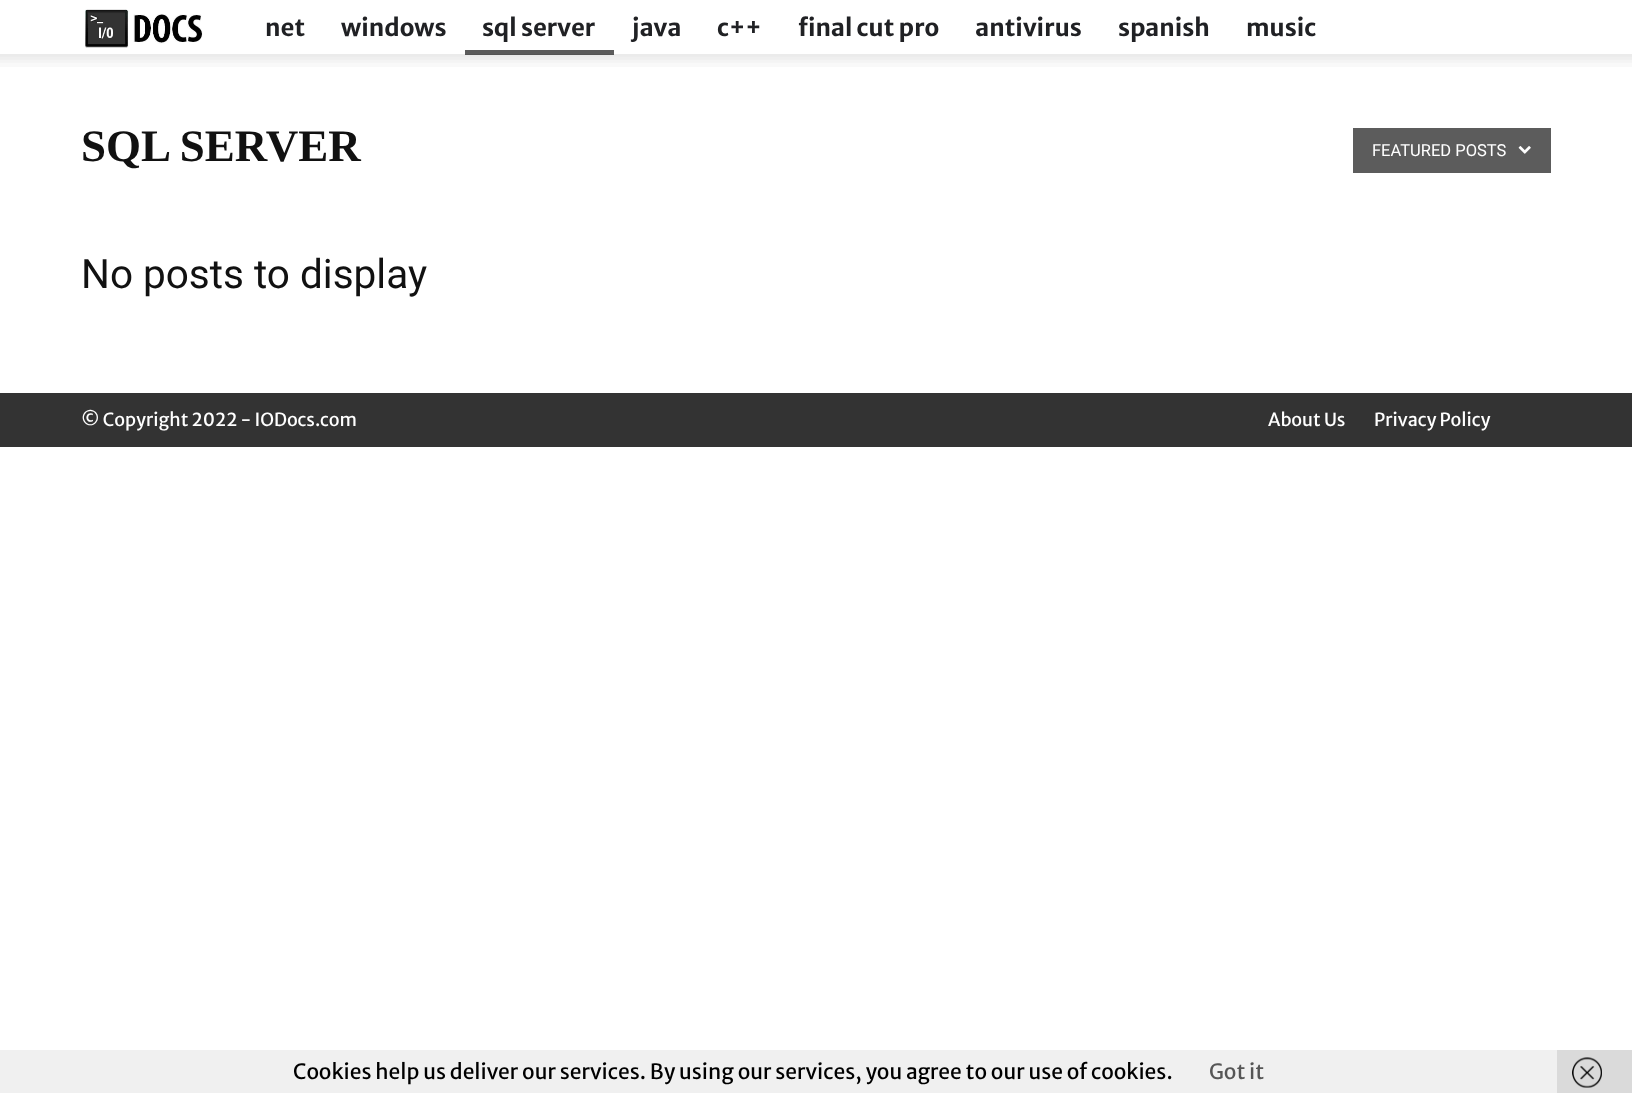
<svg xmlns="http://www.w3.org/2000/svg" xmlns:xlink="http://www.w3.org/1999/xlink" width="1632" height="1093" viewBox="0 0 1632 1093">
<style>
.cls-1{font:bold 24px Merriweather Sans;fill:#202124}
.cls-2{font:bold 45px Liberation Serif;fill:#111111}
.cls-3{font:16.5px Roboto;fill:#ffffff}
.cls-4{font:40.5px Roboto;fill:#111111}
.cls-5{font:18px Merriweather Sans;fill:#ffffff}
.cls-6{font:21px Merriweather Sans;fill:#000000}
.cls-7{font:21px Merriweather Sans;fill:#565656}
</style>
<rect width="100%" height="100%" fill="#ffffff"/>
<image xlink:href="image0.png" x="85" y="9" width="118" height="39"/>
<image xlink:href="image1.png" x="0" y="54" width="1632" height="13"/>
<rect fill="#000000" fill-opacity="0.64" x="465" y="50" width="149" height="5"/>
<rect fill="#5c5c5c" x="1353" y="128" width="198" height="45"/>
<image xlink:href="image2.png" x="1518" y="146" width="13" height="8"/>
<rect fill="#333333" x="0" y="393" width="1632" height="54"/>
<rect fill="#f0f0f0" x="0" y="1050" width="1557" height="43"/>
<rect fill="#dadada" x="1557" y="1050" width="75" height="43"/>
<image xlink:href="image3.png" x="1572" y="1057" width="30" height="31"/>
<text class="cls-1" x="265" y="36">net</text>
<text class="cls-1" x="341" y="36">windows</text>
<text class="cls-1" x="482" y="36">sql server</text>
<text class="cls-1" x="632" y="36">java</text>
<text class="cls-1" x="717" y="36">c++</text>
<text class="cls-1" x="798" y="36">final cut pro</text>
<text class="cls-1" x="975" y="36">antivirus</text>
<text class="cls-1" x="1118" y="36">spanish</text>
<text class="cls-1" x="1246" y="36">music</text>
<text class="cls-2" x="81" y="161">SQL SERVER</text>
<text class="cls-3" x="1372" y="156">FEATURED POSTS</text>
<text class="cls-4" x="81" y="288">No posts to display</text>
<text class="cls-5" x="81" y="426">© Copyright 2022 - IODocs.com</text>
<text class="cls-5" x="1268" y="426">About Us</text>
<text class="cls-5" x="1374" y="426">Privacy Policy</text>
<text class="cls-6" x="293" y="1079">Cookies help us deliver our services. By using our services, you agree to our use of cookies.</text>
<text class="cls-7" x="1209" y="1079">Got it</text>
</svg>
